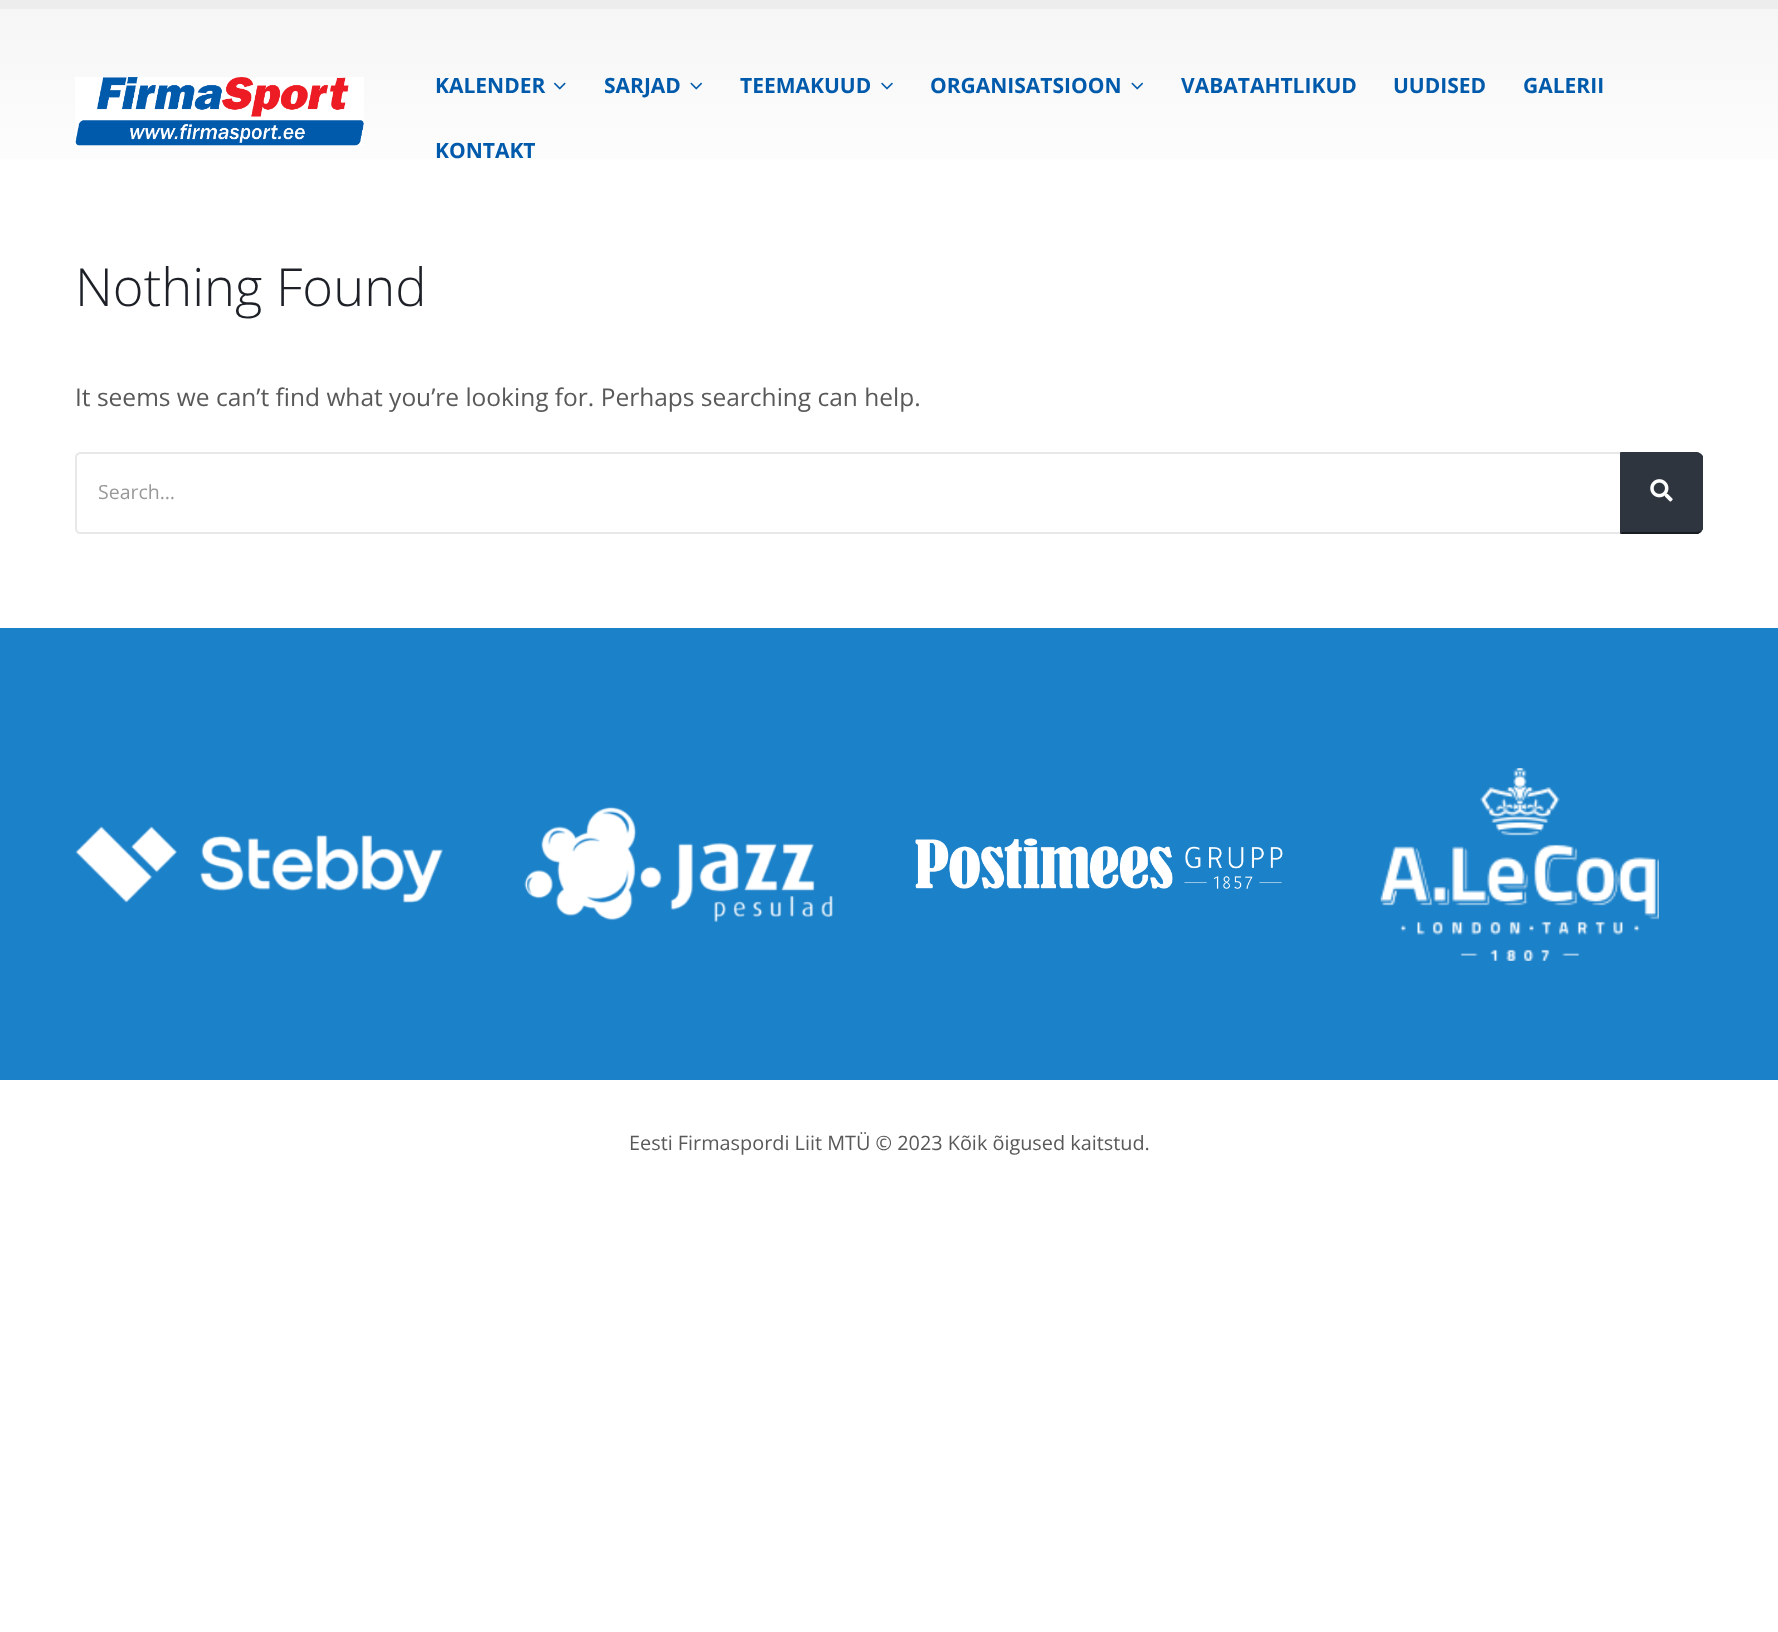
<svg xmlns="http://www.w3.org/2000/svg" xmlns:xlink="http://www.w3.org/1999/xlink" width="1778" height="1632" viewBox="0 0 1778 1632">
<style>
.cls-1{font:bold 21px Open Sans;fill:#005aab}
.cls-2{font:300 52.5px Open Sans;fill:#1d2127}
.cls-3{font:24.5px Open Sans;fill:#595959}
.cls-4{font:19.5px Open Sans;fill:#999999}
.cls-5{font:19.85px Open Sans;fill:#595959}
</style>
<defs>
<linearGradient id="g1" gradientUnits="userSpaceOnUse" x1="889" y1="9" x2="889" y2="217"><stop offset="0" stop-color="#f6f6f6"/><stop offset="1" stop-color="#ffffff"/></linearGradient>
</defs>
<rect width="100%" height="100%" fill="#ffffff"/>
<rect fill="#ededed" x="0" y="0" width="1778" height="9"/>
<rect fill="url(#g1)" x="0" y="9" width="1778" height="150"/>
<image xlink:href="image0.png" x="75" y="77" width="289" height="69"/>
<image xlink:href="image1.png" x="554" y="82" width="12" height="8"/>
<image xlink:href="image2.png" x="690" y="82" width="12" height="8"/>
<image xlink:href="image3.png" x="881" y="82" width="12" height="8"/>
<image xlink:href="image2.png" x="1131" y="82" width="12" height="8"/>
<path fill="none" stroke="#e8e8e8" stroke-width="2" d="M80 453H1621V533H80C78 533 76 531 76 529V457C76 455 78 453 80 453Z"/>
<path fill="#2e353e" d="M1621 452H1696C1700 452 1703 455 1703 459V527C1703 531 1700 534 1696 534H1621Z"/>
<path fill="#2e353e" d="M1622 453H1697L1700 455L1701 454C1699 453 1698 452 1696 452H1621Z"/>
<path fill="#2e353e" d="M1701 454L1703 456V529L1701 532L1700 531L1701 528V458L1700 455Z"/>
<path fill="#191c21" d="M1701 532L1698 534H1620L1622 532H1697L1700 531Z"/>
<path fill="#2e353e" d="M1622 453L1620 452V534L1622 532Z"/>
<image xlink:href="image4.png" x="1650" y="479" width="23" height="23"/>
<rect fill="#1b81c9" x="0" y="628" width="1778" height="452"/>
<image xlink:href="image5.png" x="75" y="826" width="368" height="77"/>
<image xlink:href="image6.png" x="524" y="806" width="309" height="116"/>
<image xlink:href="image7.png" x="915" y="838" width="368" height="51"/>
<image xlink:href="image8.png" x="1380" y="768" width="279" height="193"/>
<text class="cls-1" x="435" y="93">KALENDER</text>
<text class="cls-1" x="604" y="93">SARJAD</text>
<text class="cls-1" x="740" y="93">TEEMAKUUD</text>
<text class="cls-1" x="930" y="93">ORGANISATSIOON</text>
<text class="cls-1" x="1181" y="93">VABATAHTLIKUD</text>
<text class="cls-1" x="1393" y="93">UUDISED</text>
<text class="cls-1" x="1523" y="93">GALERII</text>
<text class="cls-1" x="435" y="158">KONTAKT</text>
<text class="cls-2" x="75" y="306">Nothing Found</text>
<text class="cls-3" x="75" y="406">It seems we can’t find what you’re looking for. Perhaps searching can help.</text>
<text class="cls-4" x="98" y="499">Search…</text>
<text class="cls-5" x="629" y="1150">Eesti Firmaspordi Liit MTÜ © 2023 Kõik õigused kaitstud.</text>
</svg>
